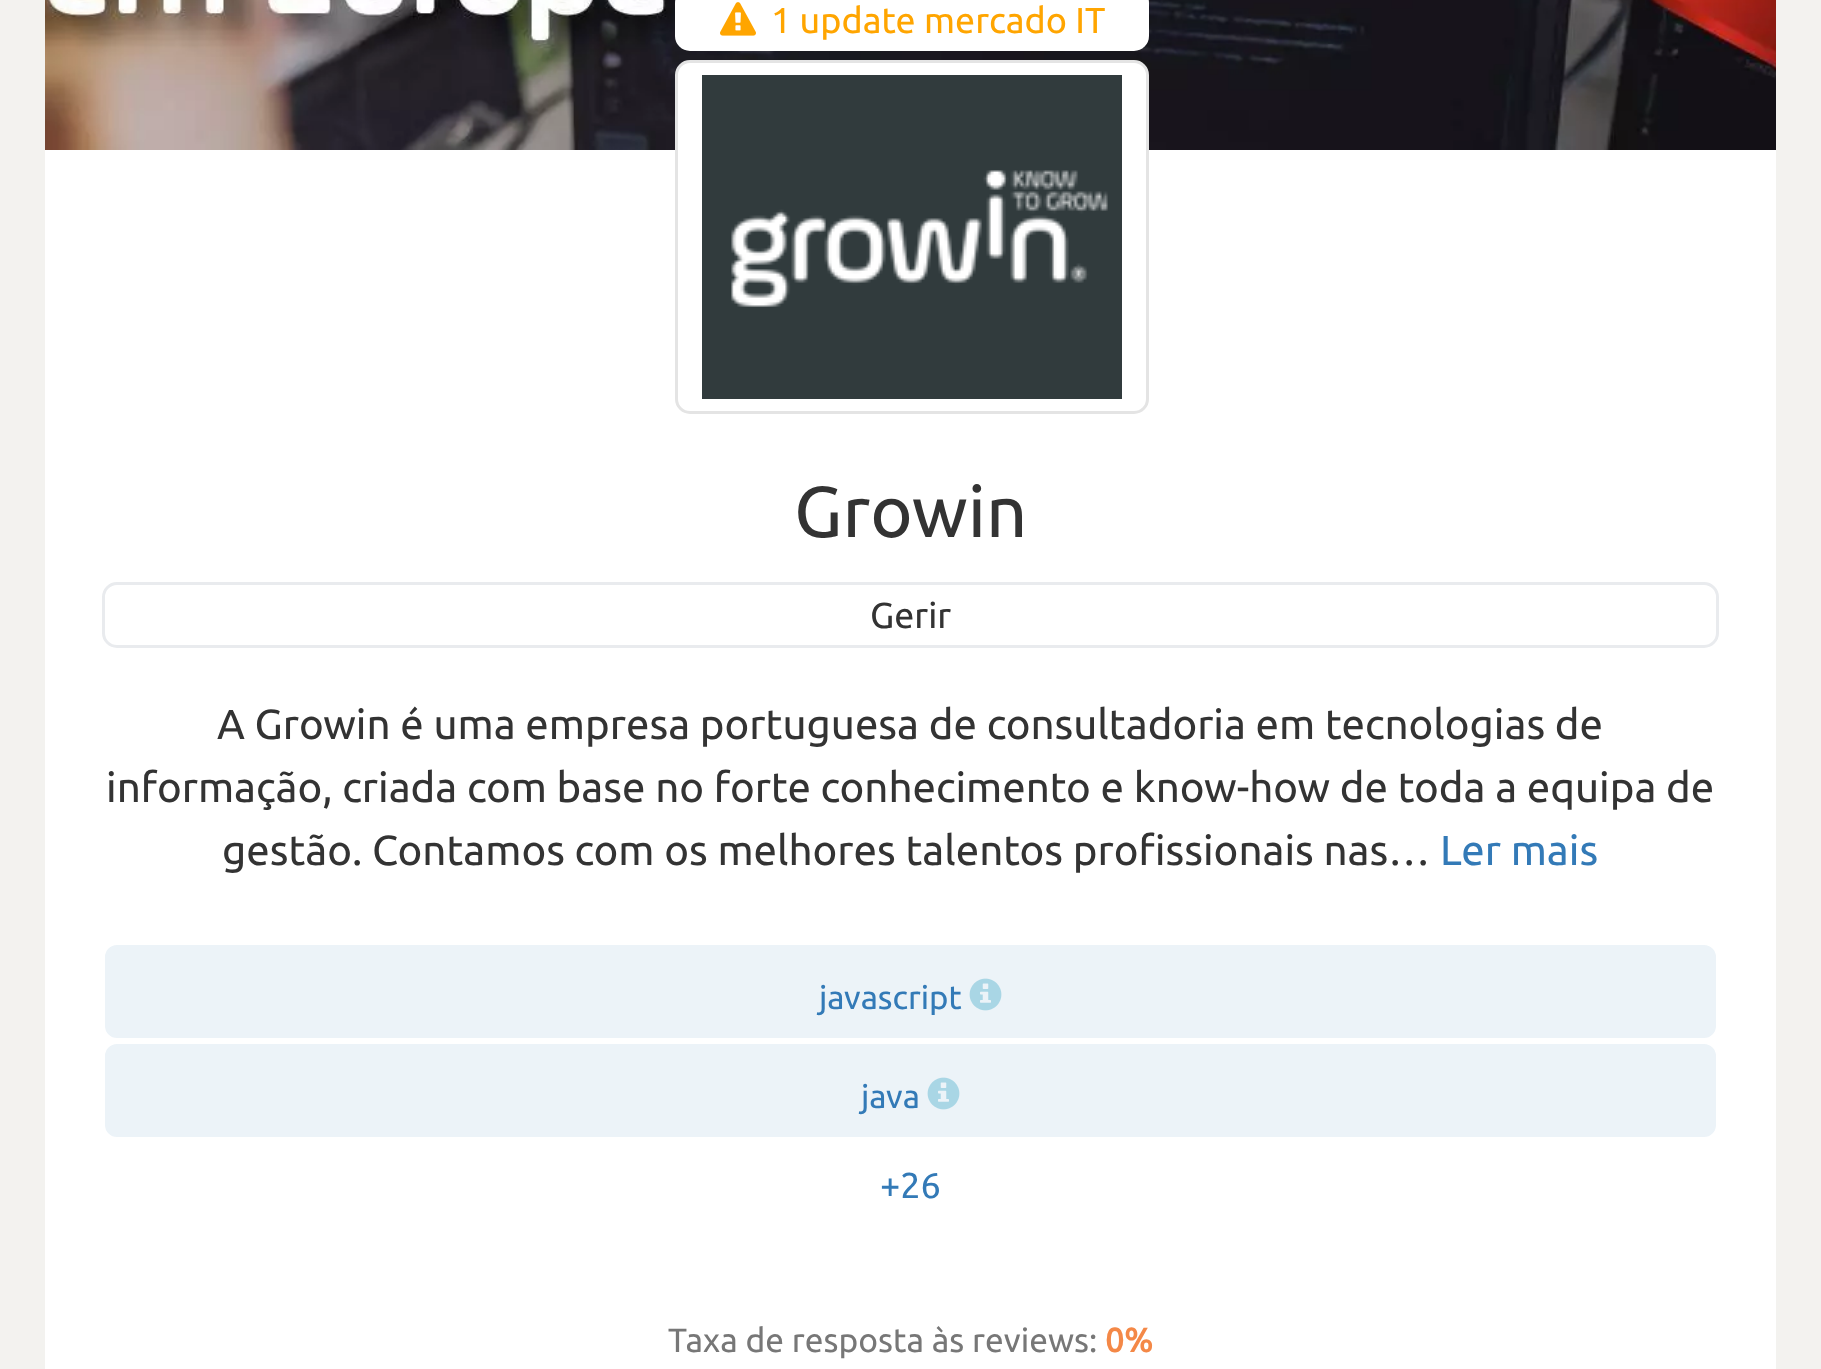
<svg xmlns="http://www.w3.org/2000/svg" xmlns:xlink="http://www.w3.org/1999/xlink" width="1821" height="1369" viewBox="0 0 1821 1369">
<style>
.cls-1{font:36px Ubuntu;fill:#ffa500}
.cls-2{font:72px Ubuntu;fill:#333333}
.cls-3{font:36px Ubuntu;fill:#333333}
.cls-4{font:42px Ubuntu;fill:#333333}
.cls-5{font:42px Ubuntu;fill:#337ab7}
.cls-6{font:33px Ubuntu;fill:#337ab7}
.cls-7{font:36px Ubuntu;fill:#337ab7}
.cls-8{font:33.6px Ubuntu;fill:#777777}
.cls-9{font:bold 33.6px Ubuntu;fill:#f48847}
</style>
<rect width="100%" height="100%" fill="#f3f2ef"/>
<image xlink:href="image0.png" x="45" y="0" width="1731" height="150"/>
<rect fill="#ffffff" x="45" y="150" width="1731" height="1219"/>
<rect fill="#ffffff" x="675" y="-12" width="474" height="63" rx="15"/>
<image xlink:href="image1.png" x="720" y="2" width="36" height="34"/>
<rect fill="#ffffff" stroke="#e4e4e4" stroke-width="3" x="676.5" y="61.5" width="471" height="351" rx="13.5"/>
<image xlink:href="image2.png" x="702" y="75" width="420" height="324"/>
<rect fill="none" stroke="#e9ebee" stroke-width="3" x="103.5" y="583.5" width="1614" height="63" rx="13.5"/>
<rect fill="#ecf3f8" stroke="#ffffff" stroke-width="3" x="103.5" y="943.5" width="1614" height="96" rx="13.5"/>
<image xlink:href="image3.png" x="969" y="978" width="33" height="33"/>
<rect fill="#ecf3f8" stroke="#ffffff" stroke-width="3" x="103.5" y="1042.5" width="1614" height="96" rx="13.5"/>
<image xlink:href="image3.png" x="927" y="1077" width="33" height="33"/>
<text class="cls-1" x="771" y="33">1 update mercado IT</text>
<text class="cls-2" x="794" y="537">Growin</text>
<text class="cls-3" x="870" y="628">Gerir</text>
<text class="cls-4" x="217" y="739">A Growin é uma empresa portuguesa de consultadoria em tecnologias de</text>
<text class="cls-4" x="106" y="802">informação, criada com base no forte conhecimento e know-how de toda a equipa de</text>
<text class="cls-4" x="222" y="865">gestão. Contamos com os melhores talentos profissionais nas…</text>
<text class="cls-5" x="1440" y="865">Ler mais</text>
<text class="cls-6" x="819" y="1009">javascript</text>
<text class="cls-6" x="861" y="1108">java</text>
<text class="cls-7" x="880" y="1198">+26</text>
<text class="cls-8" x="668" y="1352">Taxa de resposta às reviews:</text>
<text class="cls-9" x="1105" y="1352">0%</text>
</svg>
